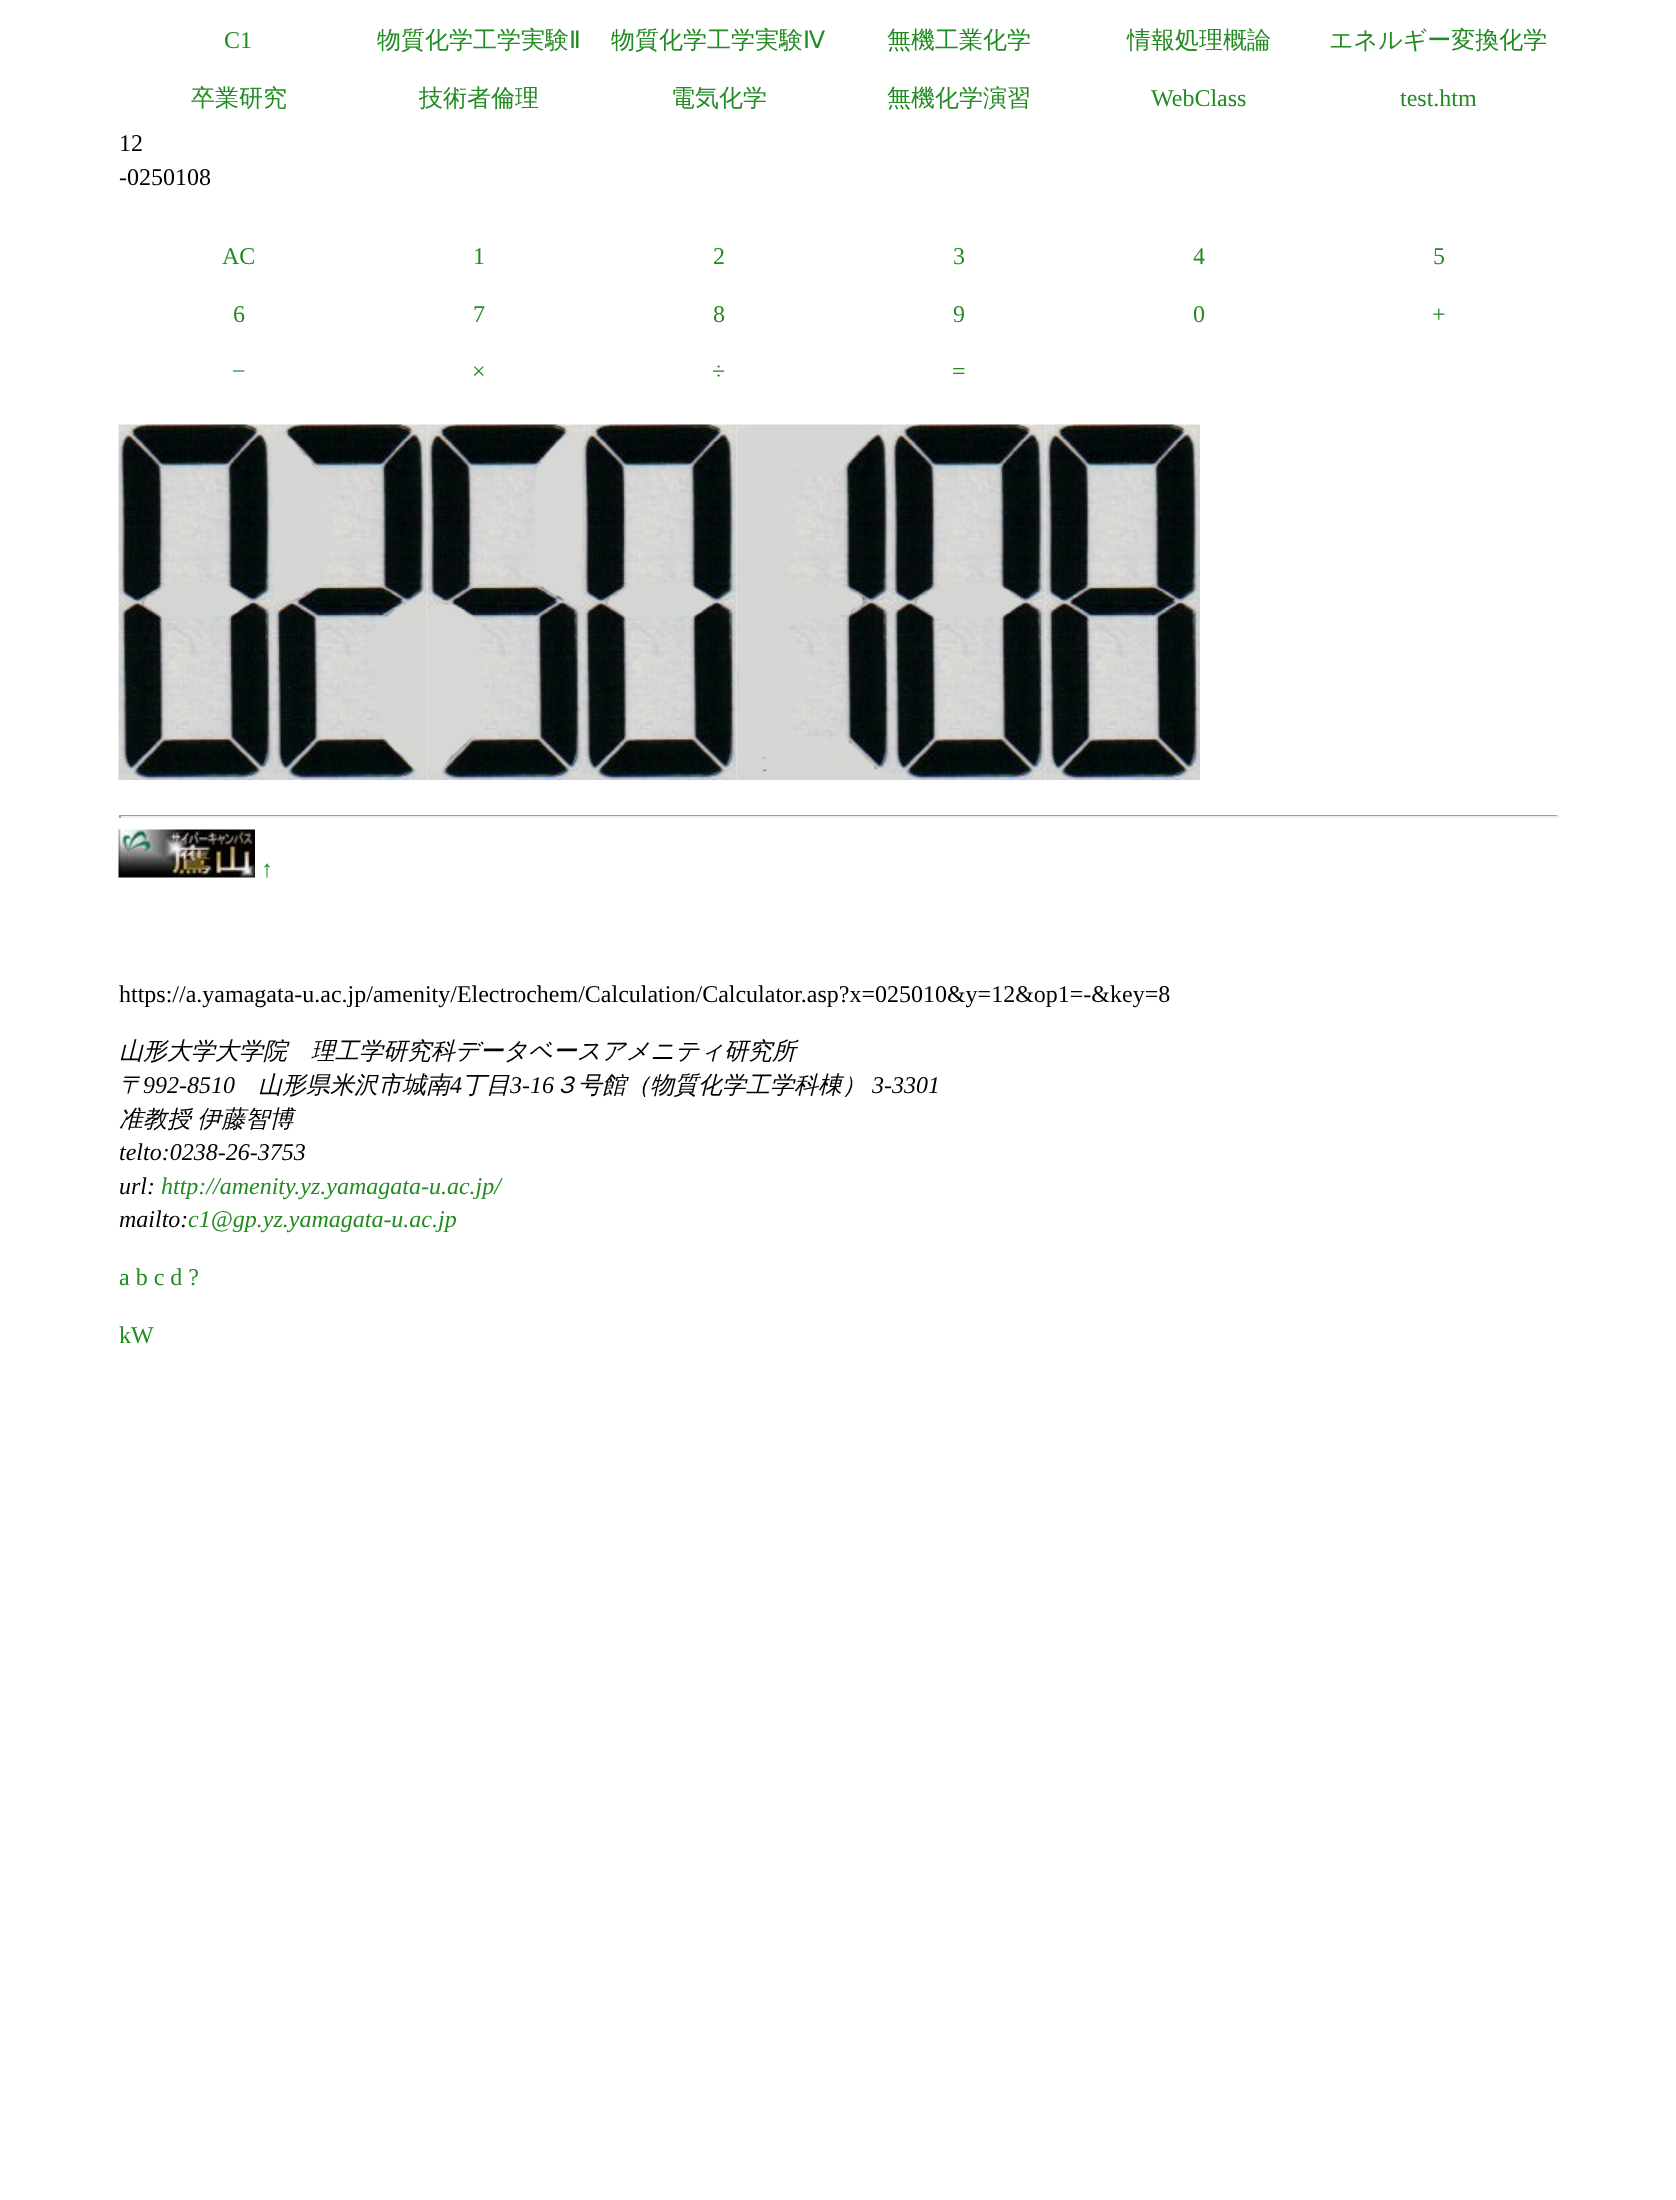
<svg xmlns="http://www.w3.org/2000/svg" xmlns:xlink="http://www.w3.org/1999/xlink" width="1676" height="2200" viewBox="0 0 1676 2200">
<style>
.cls-1{font:24px Liberation Serif;fill:#228b22}
.cls-2{font:500 24px WenQuanYi Zen Hei;fill:#228b22}
.cls-3{font:24px DejaVu Sans;fill:#228b22}
.cls-4{font:24px Liberation Serif;fill:#000000}
.cls-5{font:italic 500 24px WenQuanYi Zen Hei;fill:#000000}
.cls-6{font:italic 24px Liberation Serif;fill:#000000}
.cls-7{font:italic 24px Liberation Serif;fill:#228b22}
</style>
<rect width="100%" height="100%" fill="#ffffff"/>
<image xlink:href="image0.png" x="118" y="424" width="155" height="356"/>
<image xlink:href="image1.png" x="273" y="424" width="155" height="356"/>
<image xlink:href="image2.png" x="427" y="424" width="155" height="356"/>
<image xlink:href="image3.png" x="582" y="424" width="155" height="356"/>
<image xlink:href="image4.png" x="736" y="424" width="155" height="356"/>
<image xlink:href="image5.png" x="891" y="424" width="155" height="356"/>
<image xlink:href="image6.png" x="1045" y="424" width="155" height="356"/>
<rect fill="#9f9f9f" x="119" y="815" width="1440" height="1"/>
<rect fill="#eeeeee" x="1557" y="815" width="2" height="3"/>
<rect fill="#eeeeee" x="119" y="816" width="1440" height="2"/>
<rect fill="#9f9f9f" x="119" y="815" width="2" height="3"/>
<image xlink:href="image7.png" x="118" y="829" width="137" height="49"/>
<text class="cls-1" x="224" y="48">C1</text>
<text class="cls-2" x="377" y="48">物質化学工学実験</text>
<text class="cls-3" x="569" y="48">Ⅱ</text>
<text class="cls-2" x="611" y="48">物質化学工学実験</text>
<text class="cls-3" x="803" y="48">Ⅳ</text>
<text class="cls-2" x="887" y="48">無機工業化学</text>
<text class="cls-2" x="1127" y="48">情報処理概論</text>
<text class="cls-2" x="1329" y="48">エネルギー変換化学</text>
<text class="cls-2" x="191" y="106">卒業研究</text>
<text class="cls-2" x="419" y="106">技術者倫理</text>
<text class="cls-2" x="671" y="106">電気化学</text>
<text class="cls-2" x="887" y="106">無機化学演習</text>
<text class="cls-1" x="1151" y="106">WebClass</text>
<text class="cls-1" x="1400" y="106">test.htm</text>
<text class="cls-4"><tspan x="119" y="151">12</tspan><tspan x="119" y="185">-0250108</tspan></text>
<text class="cls-1" x="222" y="264">AC</text>
<text class="cls-1" x="473" y="264">1</text>
<text class="cls-1" x="713" y="264">2</text>
<text class="cls-1" x="953" y="264">3</text>
<text class="cls-1" x="1193" y="264">4</text>
<text class="cls-1" x="1433" y="264">5</text>
<text class="cls-1" x="233" y="322">6</text>
<text class="cls-1" x="473" y="322">7</text>
<text class="cls-1" x="713" y="322">8</text>
<text class="cls-1" x="953" y="322">9</text>
<text class="cls-1" x="1193" y="322">0</text>
<text class="cls-1" x="1432" y="322">+</text>
<text class="cls-1" x="232" y="379">−</text>
<text class="cls-1" x="472" y="379">×</text>
<text class="cls-1" x="712" y="379">÷</text>
<text class="cls-1" x="952" y="379">=</text>
<text class="cls-1" x="261" y="877">↑</text>
<text class="cls-4" x="119" y="1002">https://a.yamagata-u.ac.jp/amenity/Electrochem/Calculation/Calculator.asp?x=025010&amp;y=12&amp;op1=-&amp;key=8</text>
<text class="cls-5"><tspan x="119" y="1059">山形大学大学院　理工学研究科データベースアメニティ研究所</tspan><tspan x="119" y="1093">〒</tspan></text>
<text class="cls-6" x="143" y="1093">992-8510</text>
<text class="cls-5" x="258" y="1093">山形県米沢市城南</text>
<text class="cls-6" x="450" y="1093">4</text>
<text class="cls-5" x="462" y="1093">丁目</text>
<text class="cls-6" x="510" y="1093">3-16</text>
<text class="cls-5" x="554" y="1093">３号館（物質化学工学科棟）</text>
<text class="cls-6" x="872" y="1093">3-3301</text>
<text class="cls-5" x="119" y="1127" word-spacing="-1">准教授 伊藤智博</text>
<text class="cls-6"><tspan x="119" y="1160">telto:0238-26-3753</tspan><tspan x="119" y="1194">url:</tspan></text>
<text class="cls-7" x="161" y="1194">http://amenity.yz.yamagata-u.ac.jp/</text>
<text class="cls-6" x="119" y="1227">mailto:</text>
<text class="cls-7" x="188" y="1227">c1@gp.yz.yamagata-u.ac.jp</text>
<text class="cls-1" x="119" y="1285">a b c d ?</text>
<text class="cls-1" x="119" y="1343">kW</text>
</svg>
